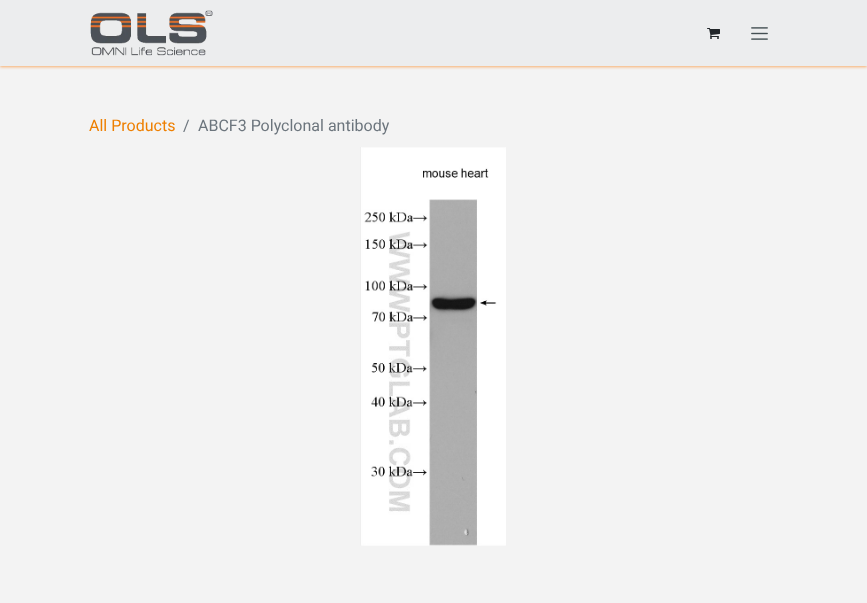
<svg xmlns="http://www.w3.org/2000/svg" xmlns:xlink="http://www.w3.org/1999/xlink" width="867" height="603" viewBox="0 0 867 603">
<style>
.cls-1{font:16px Roboto;fill:#ee7f00}
.cls-2{font:16px Roboto;fill:#6c757d}
</style>
<rect width="100%" height="100%" fill="#f3f3f3"/>
<rect fill="#f7ad6b" filter="blur(1.5px)" x="0" y="1" width="867" height="66"/>
<rect fill="#ecedee" x="0" y="0" width="867" height="66"/>
<image xlink:href="image0.png" x="90" y="10" width="123" height="46"/>
<image xlink:href="image1.png" x="707" y="28" width="13" height="11"/>
<image xlink:href="image2.png" x="751" y="27" width="17" height="13"/>
<image xlink:href="image3.png" x="360" y="147" width="146" height="399"/>
<text class="cls-1" x="89" y="131">All Products</text>
<text class="cls-2" x="183" y="131">/</text>
<text class="cls-2" x="198" y="131">ABCF3 Polyclonal antibody</text>
</svg>
